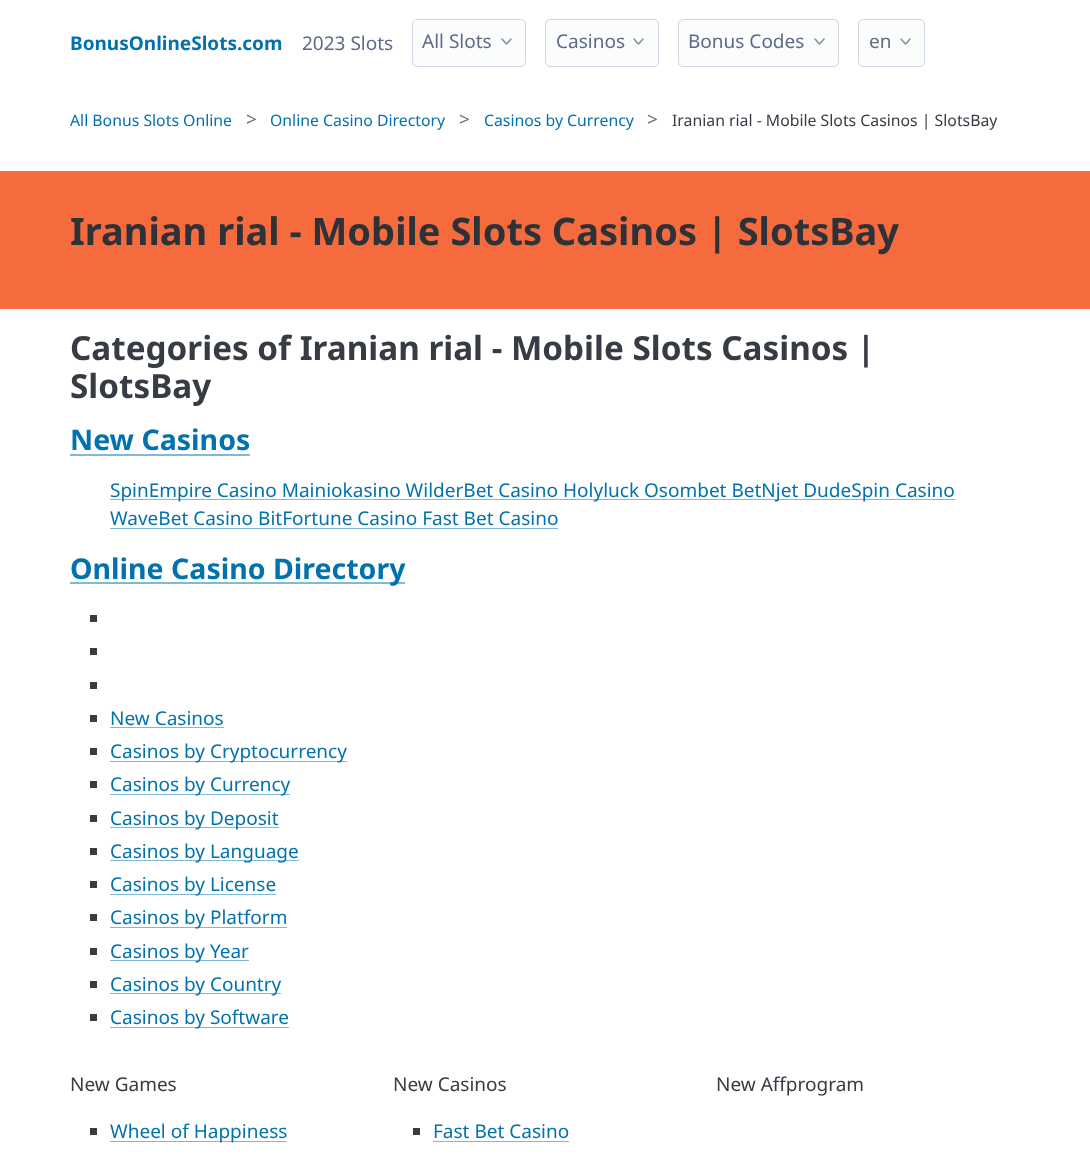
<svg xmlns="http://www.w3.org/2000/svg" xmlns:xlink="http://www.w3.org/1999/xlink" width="1090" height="1156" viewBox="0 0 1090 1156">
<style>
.cls-1{font:bold 19px Noto Sans;fill:#0172ad}
.cls-2{font:19px Noto Sans;fill:#5d6b89}
.cls-3{font:19px Noto Sans;fill:#646b79}
.cls-4{font:15.8px Noto Sans;fill:#0172ad}
.cls-5{font:15.8px Noto Sans;fill:#373c44}
.cls-6{font:bold 38px Noto Sans;fill:#2d3138}
.cls-7{font:bold 33.25px Noto Sans;fill:#373c44}
.cls-8{font:bold 28.5px Noto Sans;fill:#0172ad}
.cls-9{font:19px Noto Sans;fill:#0172ad}
.cls-10{font:19px Noto Sans;fill:#373c44}
</style>
<rect width="100%" height="100%" fill="#ffffff"/>
<rect fill="#fbfcfc" stroke="#cfd5e2" x="412.5" y="19.5" width="113" height="47" rx="4.5"/>
<path fill="none" stroke="#8891a4" stroke-width="1.6" stroke-linecap="round" stroke-linejoin="round" d="M502 39L506.5 44L511 39"/>
<rect fill="#fbfcfc" stroke="#cfd5e2" x="545.5" y="19.5" width="113" height="47" rx="4.5"/>
<path fill="none" stroke="#8891a4" stroke-width="1.6" stroke-linecap="round" stroke-linejoin="round" d="M634 39L638.5 44L643 39"/>
<rect fill="#fbfcfc" stroke="#cfd5e2" x="678.5" y="19.5" width="160" height="47" rx="4.5"/>
<path fill="none" stroke="#8891a4" stroke-width="1.6" stroke-linecap="round" stroke-linejoin="round" d="M815 39L819.5 44L824 39"/>
<rect fill="#fbfcfc" stroke="#cfd5e2" x="858.5" y="19.5" width="66" height="47" rx="4.5"/>
<path fill="none" stroke="#8891a4" stroke-width="1.6" stroke-linecap="round" stroke-linejoin="round" d="M901 39L905.5 44L910 39"/>
<rect fill="#f56b3d" x="0" y="171" width="1090" height="138"/>
<rect fill="#80b9d6" x="70" y="454" width="180" height="2"/>
<rect fill="#80b9d6" x="110" y="499" width="845" height="1"/>
<rect fill="#80b9d6" x="110" y="528" width="448" height="1"/>
<rect fill="#80b9d6" x="70" y="582" width="335" height="2"/>
<rect fill="#373c44" x="90" y="615" width="7" height="7"/>
<rect fill="#373c44" x="90" y="648" width="7" height="7"/>
<rect fill="#373c44" x="90" y="682" width="7" height="7"/>
<rect fill="#373c44" x="90" y="715" width="7" height="7"/>
<rect fill="#80b9d6" x="110" y="727" width="114" height="1"/>
<rect fill="#373c44" x="90" y="748" width="7" height="7"/>
<rect fill="#80b9d6" x="110" y="761" width="237" height="1"/>
<rect fill="#373c44" x="90" y="781" width="7" height="7"/>
<rect fill="#80b9d6" x="110" y="794" width="180" height="1"/>
<rect fill="#373c44" x="90" y="815" width="7" height="7"/>
<rect fill="#80b9d6" x="110" y="827" width="169" height="1"/>
<rect fill="#373c44" x="90" y="848" width="7" height="7"/>
<rect fill="#80b9d6" x="110" y="860" width="189" height="1"/>
<rect fill="#373c44" x="90" y="881" width="7" height="7"/>
<rect fill="#80b9d6" x="110" y="894" width="166" height="1"/>
<rect fill="#373c44" x="90" y="914" width="7" height="7"/>
<rect fill="#80b9d6" x="110" y="927" width="177" height="1"/>
<rect fill="#373c44" x="90" y="948" width="7" height="7"/>
<rect fill="#80b9d6" x="110" y="960" width="139" height="1"/>
<rect fill="#373c44" x="90" y="981" width="7" height="7"/>
<rect fill="#80b9d6" x="110" y="993" width="171" height="1"/>
<rect fill="#373c44" x="90" y="1014" width="7" height="7"/>
<rect fill="#80b9d6" x="110" y="1027" width="179" height="1"/>
<rect fill="#373c44" x="90" y="1128" width="7" height="7"/>
<rect fill="#80b9d6" x="110" y="1141" width="177" height="1"/>
<rect fill="#373c44" x="413" y="1128" width="7" height="7"/>
<rect fill="#80b9d6" x="433" y="1141" width="136" height="1"/>
<text class="cls-1" x="70" y="50">BonusOnlineSlots.com</text>
<text class="cls-2" x="302" y="50">2023 Slots</text>
<text class="cls-2" x="422" y="48">All Slots</text>
<text class="cls-2" x="556" y="48">Casinos</text>
<text class="cls-2" x="688" y="48">Bonus Codes</text>
<text class="cls-3" x="869" y="48">en</text>
<text class="cls-4" x="70" y="126">All Bonus Slots Online</text>
<text class="cls-3" x="246" y="126">&gt;</text>
<text class="cls-4" x="270" y="126">Online Casino Directory</text>
<text class="cls-3" x="459" y="126">&gt;</text>
<text class="cls-4" x="484" y="126">Casinos by Currency</text>
<text class="cls-3" x="647" y="126">&gt;</text>
<text class="cls-5" x="672" y="126">Iranian rial - Mobile Slots Casinos | SlotsBay</text>
<text class="cls-6" x="70" y="245">Iranian rial - Mobile Slots Casinos | SlotsBay</text>
<text class="cls-7"><tspan x="70" y="360">Categories of Iranian rial - Mobile Slots Casinos |</tspan><tspan x="70" y="398">SlotsBay</tspan></text>
<text class="cls-8" x="70" y="450">New Casinos</text>
<text class="cls-9"><tspan x="110" y="497">SpinEmpire Casino Mainiokasino WilderBet Casino Holyluck Osombet BetNjet DudeSpin Casino</tspan><tspan x="110" y="525">WaveBet Casino BitFortune Casino Fast Bet Casino</tspan></text>
<text class="cls-8" x="70" y="579">Online Casino Directory</text>
<text class="cls-9"><tspan x="110" y="725">New Casinos</tspan><tspan x="110" y="758">Casinos by Cryptocurrency</tspan><tspan x="110" y="791">Casinos by Currency</tspan><tspan x="110" y="825">Casinos by Deposit</tspan><tspan x="110" y="858">Casinos by Language</tspan><tspan x="110" y="891">Casinos by License</tspan><tspan x="110" y="924">Casinos by Platform</tspan><tspan x="110" y="958">Casinos by Year</tspan><tspan x="110" y="991">Casinos by Country</tspan><tspan x="110" y="1024">Casinos by Software</tspan></text>
<text class="cls-10" x="70" y="1091">New Games</text>
<text class="cls-9" x="110" y="1138">Wheel of Happiness</text>
<text class="cls-10" x="393" y="1091">New Casinos</text>
<text class="cls-9" x="433" y="1138">Fast Bet Casino</text>
<text class="cls-10" x="716" y="1091">New Affprogram</text>
</svg>
